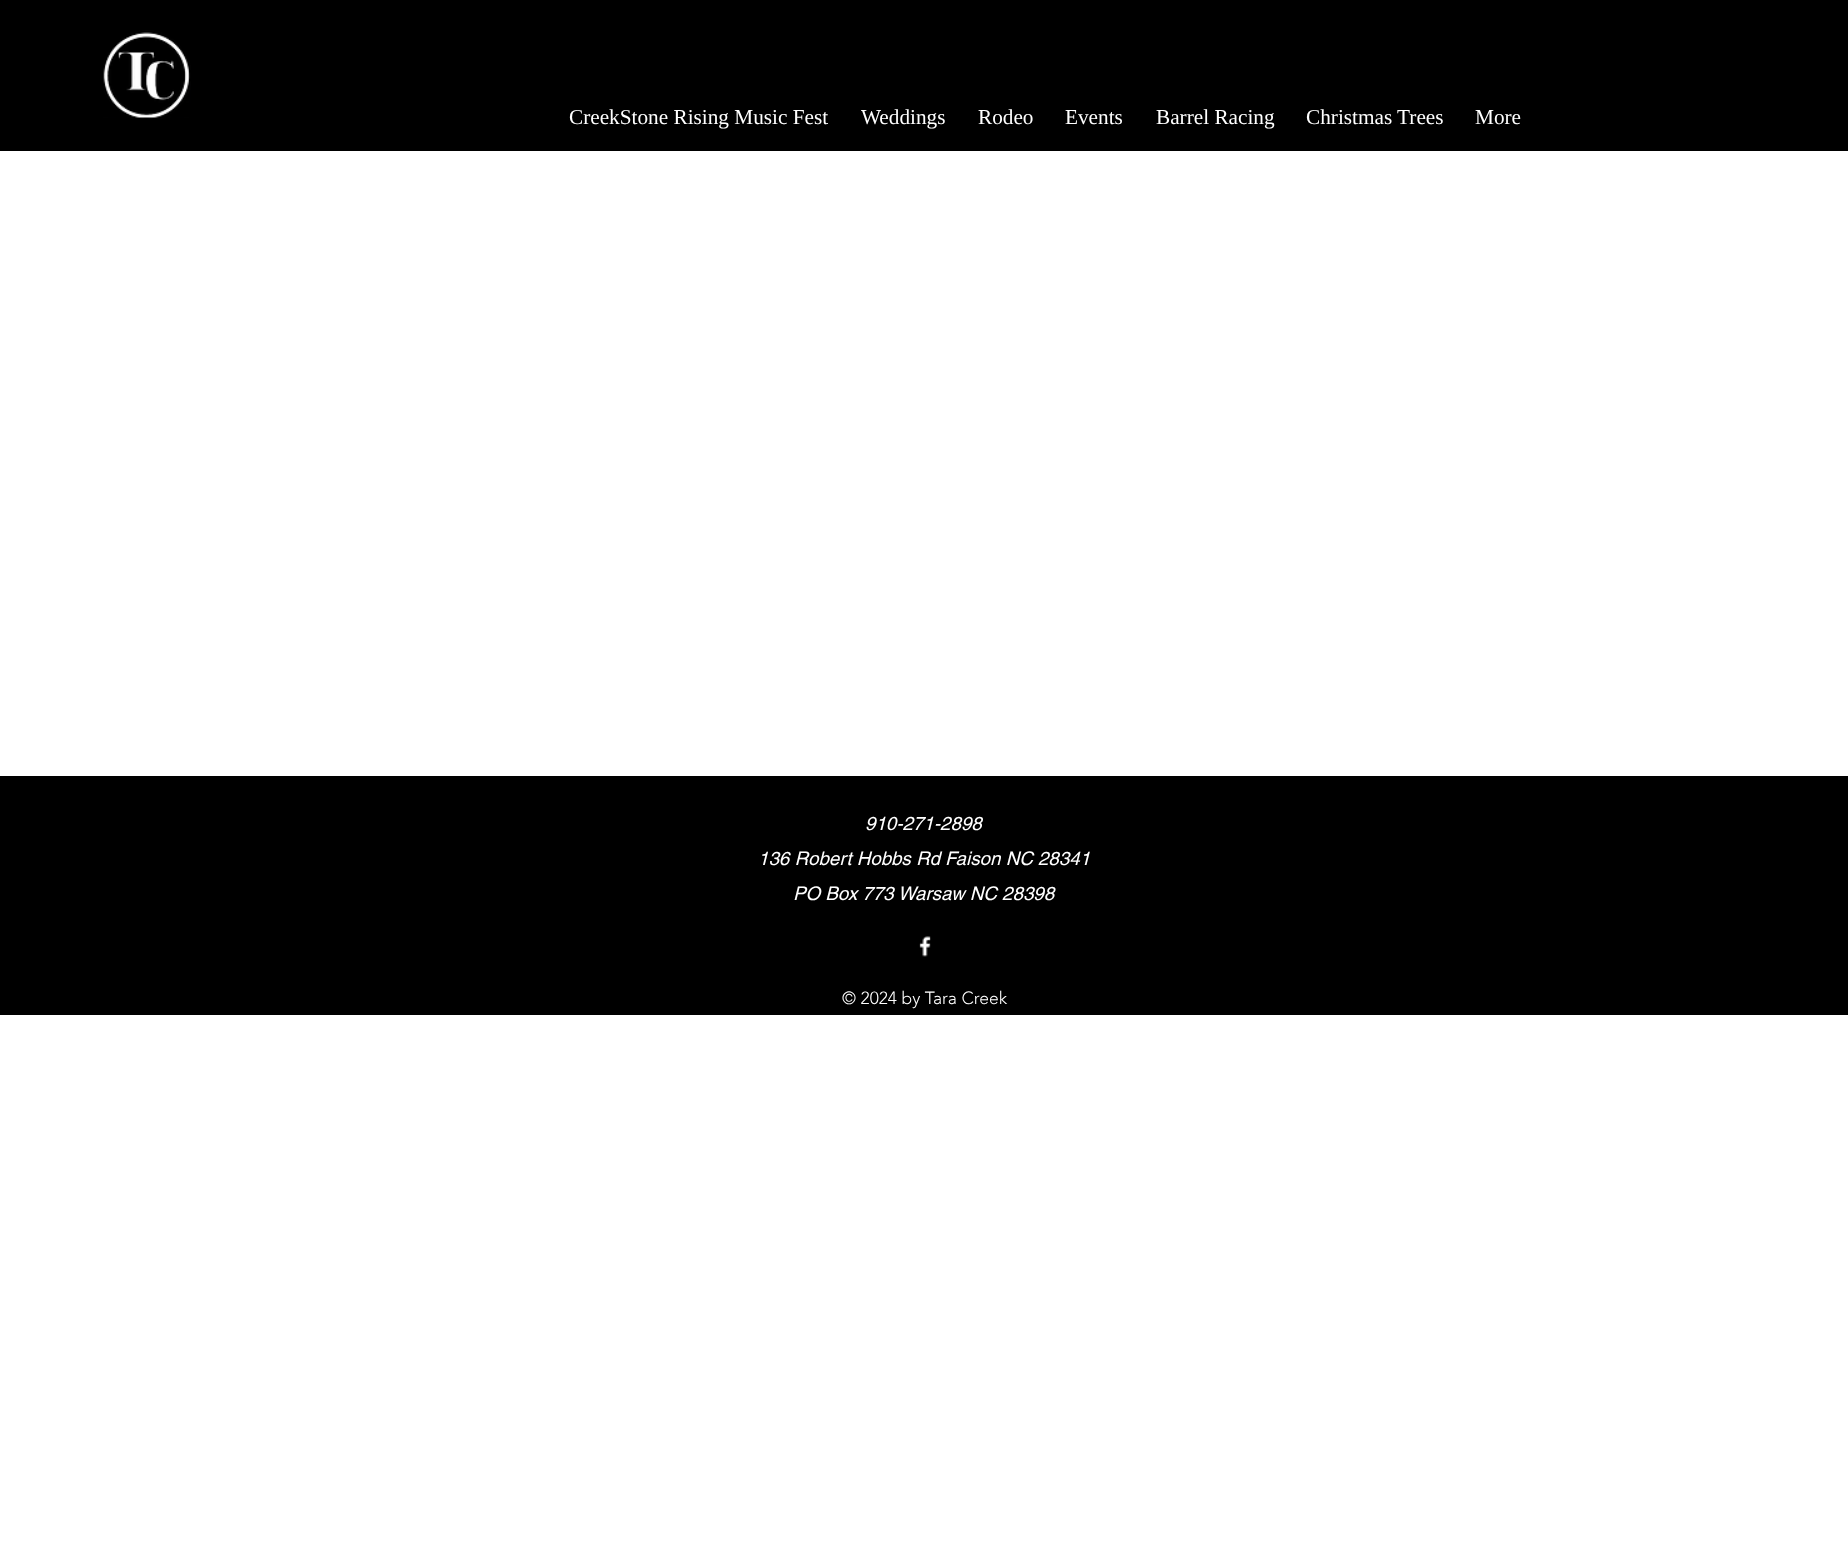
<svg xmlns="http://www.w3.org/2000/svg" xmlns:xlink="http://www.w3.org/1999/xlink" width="1848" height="1556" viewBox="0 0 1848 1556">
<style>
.cls-1{font:21.25px Liberation Serif;fill:#ffffff}
.cls-2{font:italic 18.75px helvetica;fill:#ffffff}
.cls-3{font:300 17.5px 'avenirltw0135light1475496';fill:#ffffff}
</style>
<rect width="100%" height="100%" fill="#ffffff"/>
<rect fill="#000000" x="0" y="0" width="1848" height="151"/>
<image xlink:href="image0.png" x="103" y="30" width="88" height="89"/>
<rect fill="#000000" x="0" y="776" width="1848" height="239"/>
<image xlink:href="image1.png" x="919" y="936" width="12" height="21"/>
<text class="cls-1" x="569" y="124">CreekStone Rising Music Fest</text>
<text class="cls-1" x="861" y="124">Weddings</text>
<text class="cls-1" x="978" y="124">Rodeo</text>
<text class="cls-1" x="1065" y="124">Events</text>
<text class="cls-1" x="1156" y="124">Barrel Racing</text>
<text class="cls-1" x="1306" y="124">Christmas Trees</text>
<text class="cls-1" x="1475" y="124">More</text>
<text class="cls-2" x="865" y="830">910-271-2898</text>
<text class="cls-2" x="758" y="865">136 Robert Hobbs Rd Faison NC 28341</text>
<text class="cls-2" x="793" y="900">PO Box 773 Warsaw NC 28398</text>
<text class="cls-3" x="842" y="1004">© 2024 by Tara Creek</text>
</svg>
